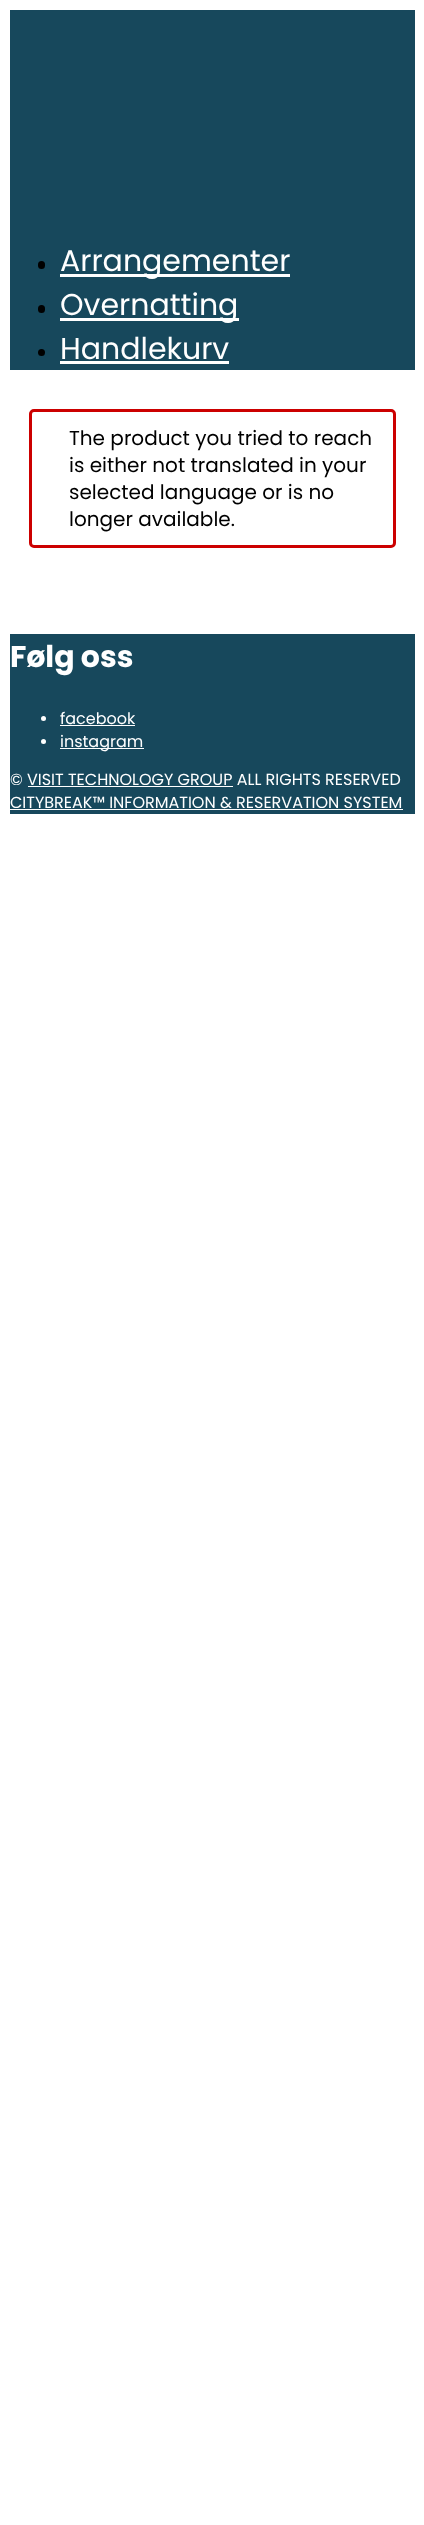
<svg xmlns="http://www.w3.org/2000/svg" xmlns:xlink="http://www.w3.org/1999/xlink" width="424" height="2525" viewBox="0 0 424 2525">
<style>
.cls-1{font:30px Poppins;fill:#ffffff}
.cls-2{font:20px Poppins;fill:#000000}
.cls-3{font:bold 30px Poppins;fill:#ffffff}
.cls-4{font:16px Poppins;fill:#ffffff}
</style>
<rect width="100%" height="100%" fill="#ffffff"/>
<rect fill="#17485c" x="10" y="10" width="405" height="360"/>
<rect fill="#000000" x="38" y="261" width="7" height="8" rx="3.5"/>
<rect fill="#ffffff" x="60" y="274" width="230" height="3"/>
<rect fill="#000000" x="38" y="305" width="7" height="8" rx="3.5"/>
<rect fill="#ffffff" x="60" y="318" width="179" height="3"/>
<circle fill="#000000" cx="41.5" cy="352.5" r="3.5"/>
<rect fill="#ffffff" x="60" y="361" width="169" height="3"/>
<rect fill="none" stroke="#cc0000" stroke-width="3" x="30.5" y="410.5" width="364" height="136" rx="3.5"/>
<rect fill="#17485c" x="10" y="634" width="405" height="180"/>
<circle fill="#ffffff" cx="43.5" cy="718.5" r="2.5"/>
<rect fill="#ffffff" x="60" y="725" width="75" height="1"/>
<circle fill="#ffffff" cx="43.5" cy="741.5" r="2.5"/>
<rect fill="#ffffff" x="60" y="748" width="84" height="1"/>
<rect fill="#ffffff" x="28" y="786" width="205" height="1"/>
<rect fill="#ffffff" x="10" y="809" width="393" height="1"/>
<text class="cls-1"><tspan x="60" y="271">Arrangementer</tspan><tspan x="60" y="315">Overnatting</tspan><tspan x="60" y="359">Handlekurv</tspan></text>
<text class="cls-2"><tspan x="69" y="445">The product you tried to reach</tspan><tspan x="69" y="472">is either not translated in your</tspan><tspan x="69" y="499">selected language or is no</tspan><tspan x="69" y="526">longer available.</tspan></text>
<text class="cls-3" x="10" y="667">Følg oss</text>
<text class="cls-4"><tspan x="60" y="724">facebook</tspan><tspan x="60" y="747">instagram</tspan></text>
<text class="cls-4"><tspan x="10" y="785">© VISIT TECHNOLOGY GROUP ALL RIGHTS RESERVED</tspan><tspan x="10" y="808">CITYBREAK™ INFORMATION &amp; RESERVATION SYSTEM</tspan></text>
</svg>
